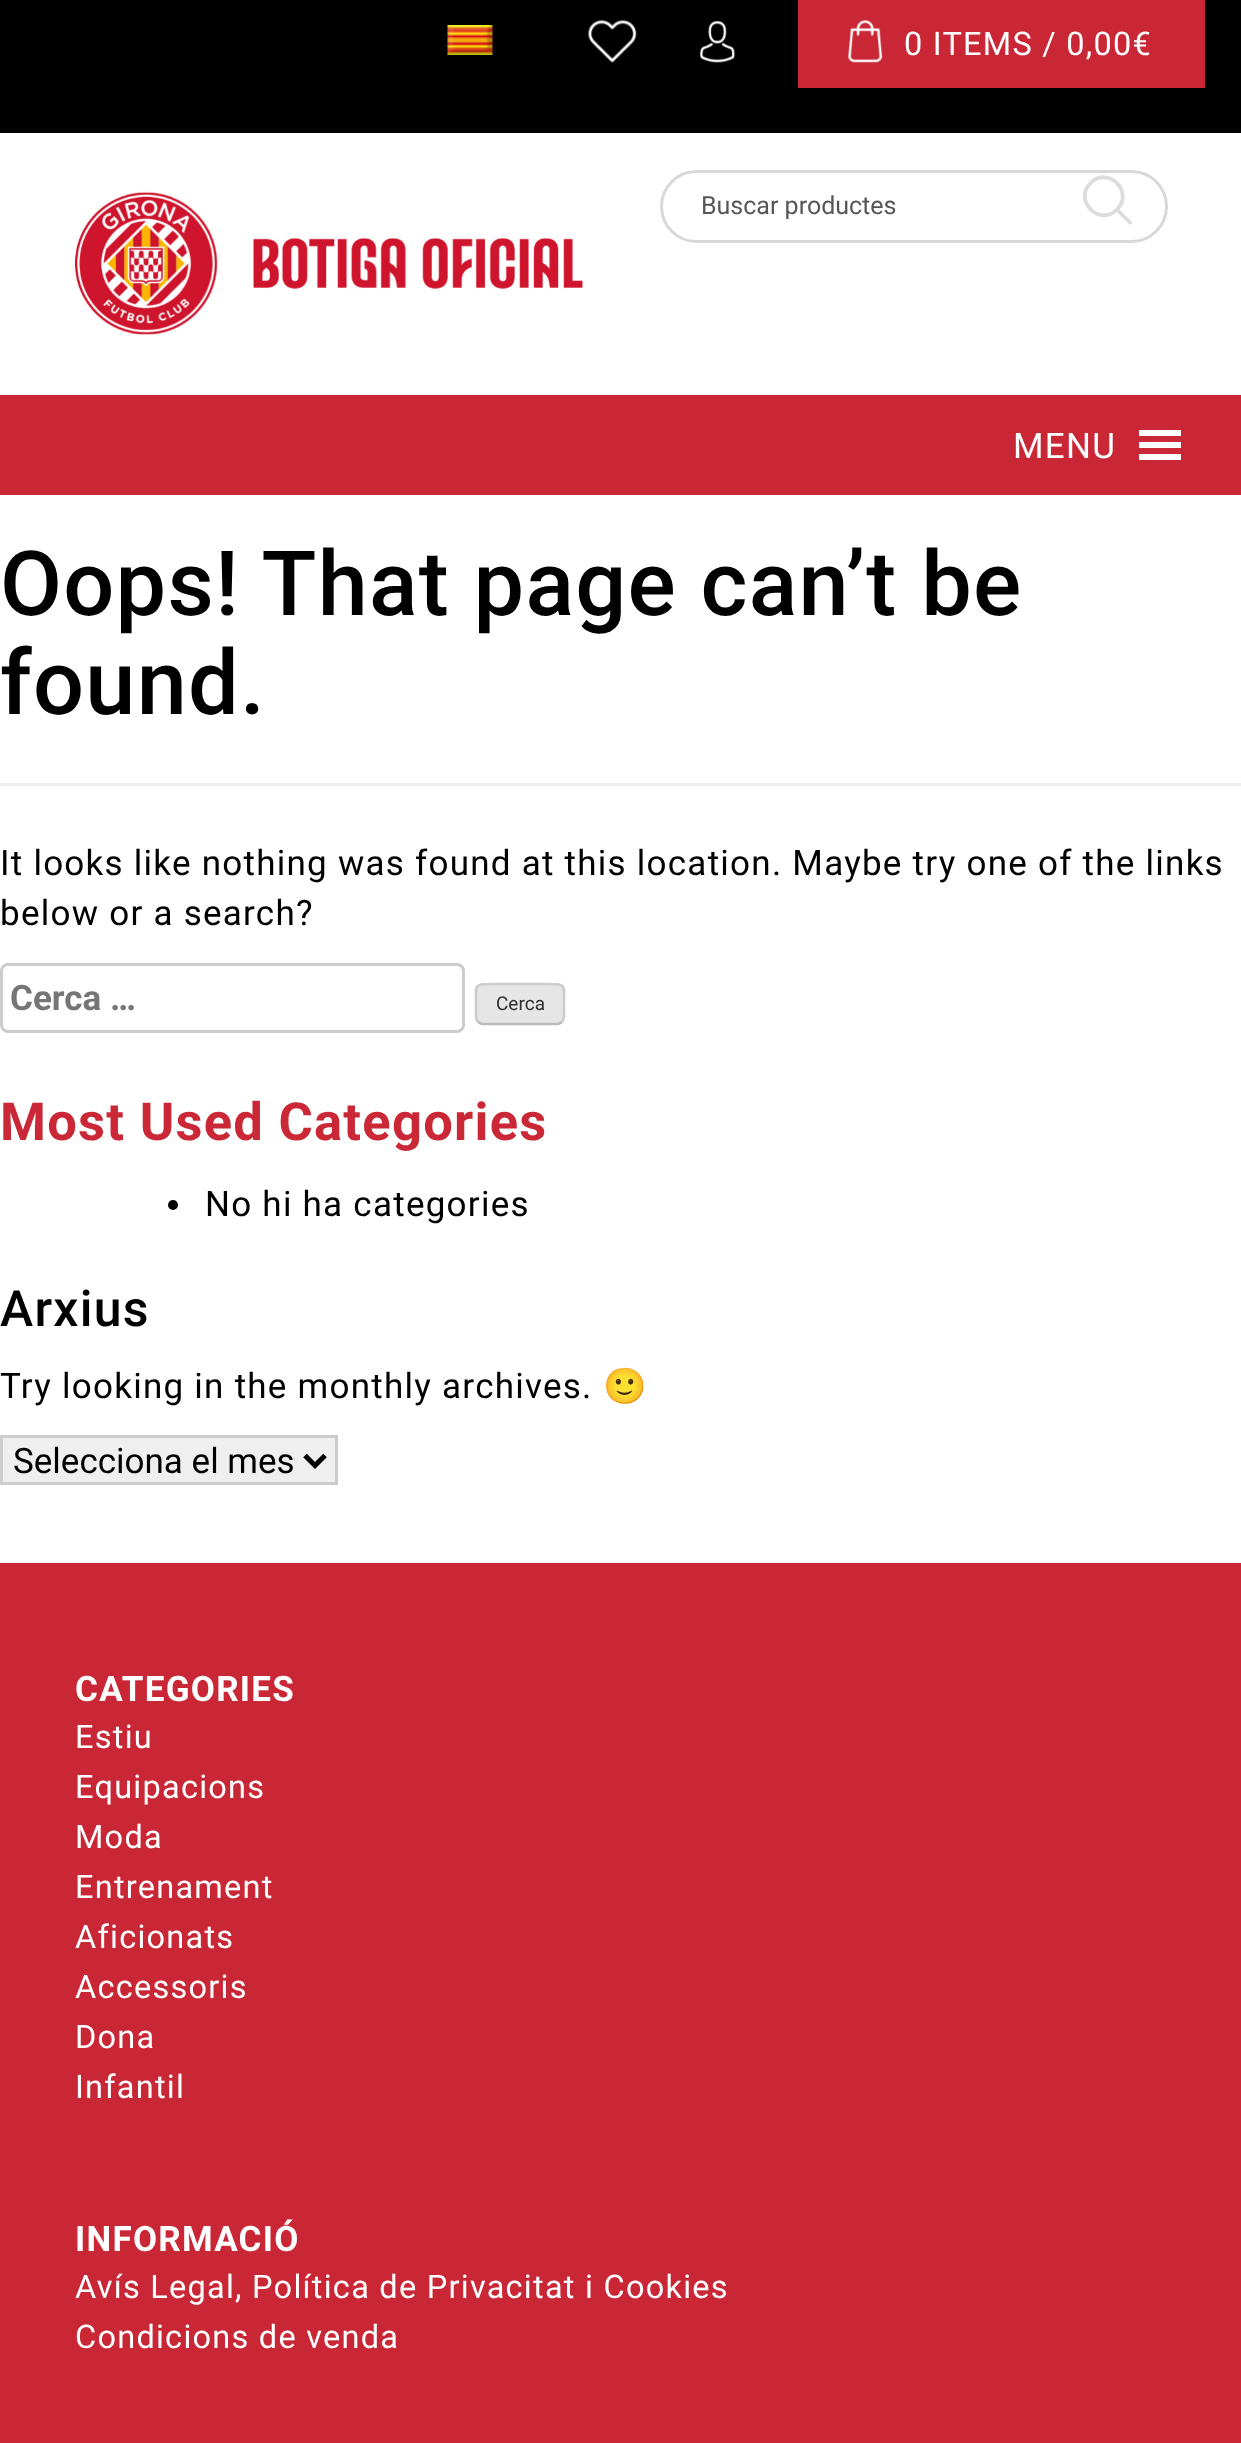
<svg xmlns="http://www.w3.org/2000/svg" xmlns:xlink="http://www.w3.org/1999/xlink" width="1241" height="2443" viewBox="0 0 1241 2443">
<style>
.cls-1{font:32.5px Roboto;letter-spacing:1.25px;fill:#ffffff}
.cls-2{font:25px Roboto;fill:#575757}
.cls-3{font:35px Roboto;letter-spacing:1.25px;fill:#ffffff}
.cls-4{font:500 90px Roboto;letter-spacing:1.25px;fill:#000000}
.cls-5{font:35px Roboto;letter-spacing:1.25px;fill:#000000}
.cls-6{font:bold 35px Roboto;fill:#757575}
.cls-7{font:19px Roboto;fill:#2e2e2e}
.cls-8{font:bold 52.5px Roboto;letter-spacing:1.25px;fill:#ca2836}
.cls-9{font:500 50px Roboto;letter-spacing:1.25px;fill:#000000}
.cls-10{font:35px Noto Color Emoji;letter-spacing:1.25px;fill:#000000}
.cls-11{font:35px Roboto;fill:#000000}
.cls-12{font:bold 35px Roboto;letter-spacing:1.25px;fill:#ffffff}
</style>
<rect width="100%" height="100%" fill="#ffffff"/>
<rect fill="#000000" x="0" y="0" width="1241" height="133"/>
<image xlink:href="image0.png" x="447" y="25" width="46" height="30"/>
<image xlink:href="image1.png" x="588" y="20" width="49" height="43"/>
<image xlink:href="image2.png" x="700" y="20" width="35" height="43"/>
<rect fill="#ca2736" x="798" y="0" width="407" height="88"/>
<image xlink:href="image3.png" x="848" y="20" width="35" height="43"/>
<image xlink:href="image4.png" x="75" y="191" width="508" height="144"/>
<rect fill="none" stroke="#d8d8d8" stroke-width="3" x="661.5" y="171.5" width="505" height="70" rx="35"/>
<path fill="none" stroke="#dcdcdc" stroke-width="3.8" stroke-linecap="round" stroke-linejoin="round" d="M1130 222.5L1117 209.5M1117 209.5C1134.5 192 1108 165.5 1090.5 183C1073 200.5 1099.5 227 1117 209.5Z"/>
<rect fill="#ca2736" x="0" y="395" width="1241" height="100"/>
<path fill="#ffffff" d="M1139 460H1181V454H1139ZM1139 430V436H1181V430ZM1139 448H1181V442H1139Z"/>
<rect fill="#eeeeee" x="0" y="783" width="1241" height="3"/>
<rect fill="none" stroke="#cccccc" stroke-width="3" x="1.5" y="964.5" width="462" height="67" rx="6.5"/>
<rect fill="#e6e6e6" x="475" y="983" width="90" height="42" rx="8"/>
<path fill="none" stroke="#bbbbbb" stroke-width="2.5" d="M562 1022C560.5 1023 559 1024 557.5 1024H482.5C481 1024 479.5 1023 478 1022"/>
<path fill="none" stroke="#cccccc" stroke-width="2.5" d="M478 1022C475.5 1019.5 476 1016 476 1013V1004C476 983 473.5 984 495 984H545C566.5 984 564 983 564 1004V1013C564 1016 564.5 1019.5 562 1022"/>
<circle fill="#000000" cx="173" cy="1205" r="5"/>
<rect fill="#efefef" stroke="#cccccc" stroke-width="3" x="1.5" y="1436.5" width="335" height="47"/>
<path fill="none" stroke="#000000" stroke-width="5" d="M305 1455.5L315 1465.5L325 1455.5"/>
<rect fill="#ca2736" x="0" y="1563" width="1241" height="880"/>
<text class="cls-1" x="904" y="55">0 ITEMS / 0,00€</text>
<text class="cls-2" x="701" y="214">Buscar productes</text>
<text class="cls-3" x="1013" y="458">MENU</text>
<text class="cls-4"><tspan x="0" y="615">Oops! That page can’t be</tspan><tspan x="0" y="714">found.</tspan></text>
<text class="cls-5"><tspan x="0" y="875">It looks like nothing was found at this location. Maybe try one of the links</tspan><tspan x="0" y="925">below or a search?</tspan></text>
<text class="cls-6" x="10" y="1010">Cerca …</text>
<text class="cls-7" x="496" y="1010">Cerca</text>
<text class="cls-8" x="0" y="1140">Most Used Categories</text>
<text class="cls-5" x="205" y="1216">No hi ha categories</text>
<text class="cls-9" x="0" y="1326">Arxius</text>
<text class="cls-5" x="0" y="1398">Try looking in the monthly archives.</text>
<text class="cls-10" x="603" y="1398">🙂</text>
<text class="cls-11" x="13" y="1473">Selecciona el mes</text>
<text class="cls-12" x="75" y="1701">CATEGORIES</text>
<text class="cls-1"><tspan x="75" y="1748">Estiu</tspan><tspan x="75" y="1798">Equipacions</tspan><tspan x="75" y="1848">Moda</tspan><tspan x="75" y="1898">Entrenament</tspan><tspan x="75" y="1948">Aficionats</tspan><tspan x="75" y="1998">Accessoris</tspan><tspan x="75" y="2048">Dona</tspan><tspan x="75" y="2098">Infantil</tspan></text>
<text class="cls-12" x="75" y="2251">INFORMACIÓ</text>
<text class="cls-1"><tspan x="75" y="2298">Avís Legal, Política de Privacitat i Cookies</tspan><tspan x="75" y="2348">Condicions de venda</tspan></text>
</svg>
